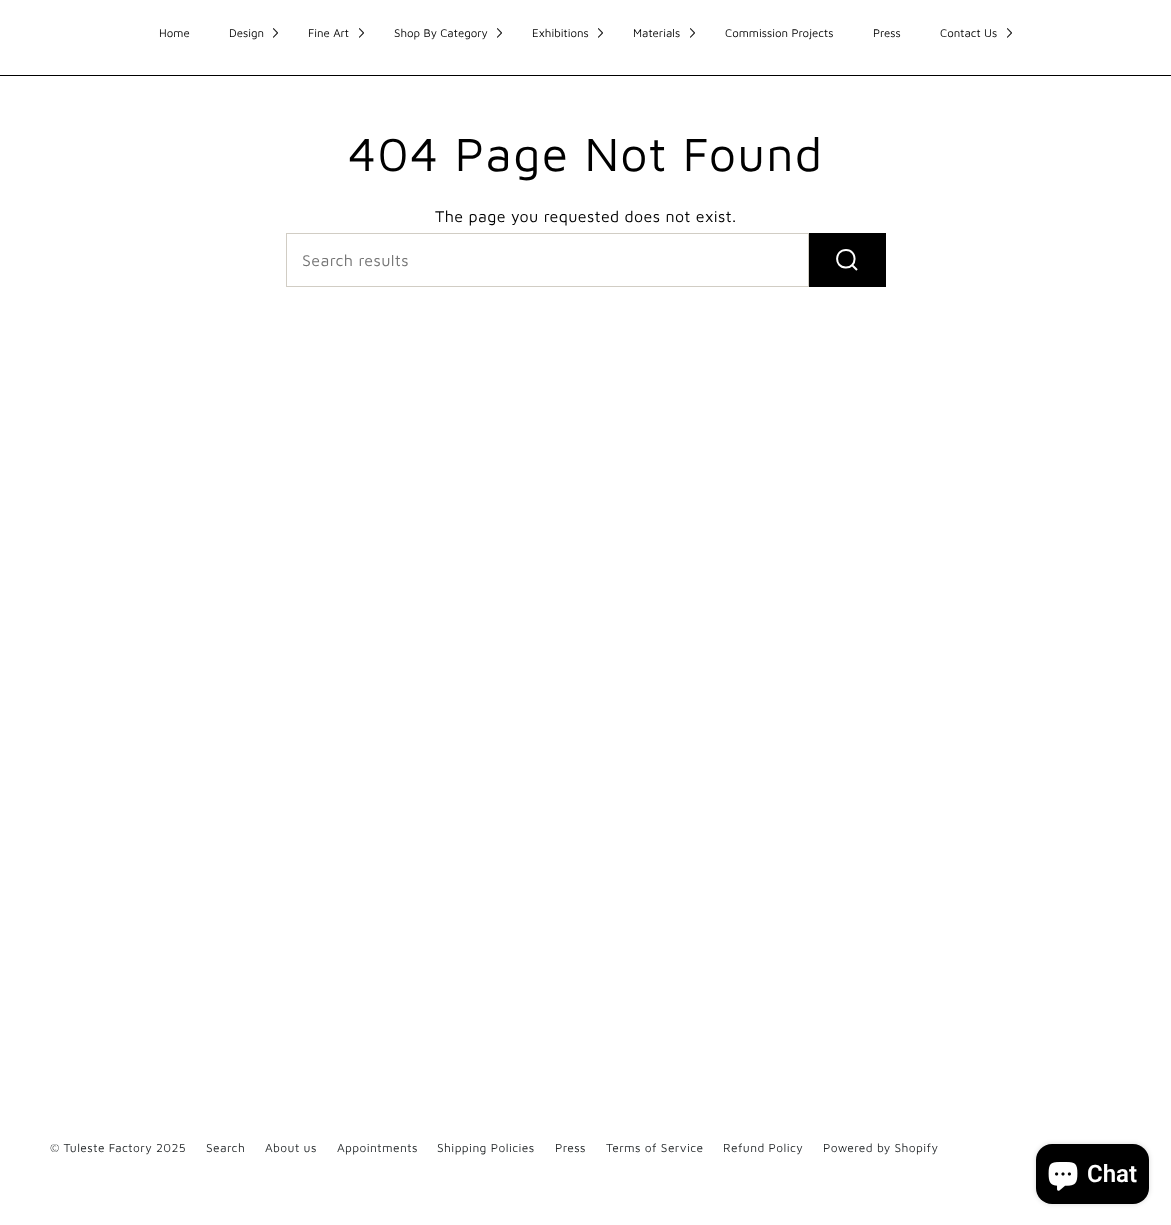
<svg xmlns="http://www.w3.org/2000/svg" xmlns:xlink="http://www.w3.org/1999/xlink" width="1171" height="1225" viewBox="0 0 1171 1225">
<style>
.cls-1{font:11.5px Maven Pro;fill:#000000}
.cls-2{font:48px Maven Pro;letter-spacing:1.25px;fill:#000000}
.cls-3{font:16px Maven Pro;letter-spacing:0.4px;fill:#000000}
.cls-4{font:16px Maven Pro;letter-spacing:0.4px;fill:#757575}
.cls-5{font:12px Maven Pro;letter-spacing:0.4px;fill:#282c2e}
.cls-6{font:600 24px Roboto;fill:#ffffff}
</style>
<rect width="100%" height="100%" fill="#ffffff"/>
<image xlink:href="image0.png" x="273" y="28" width="5" height="10"/>
<image xlink:href="image0.png" x="359" y="28" width="5" height="10"/>
<image xlink:href="image0.png" x="497" y="28" width="5" height="10"/>
<image xlink:href="image0.png" x="598" y="28" width="5" height="10"/>
<image xlink:href="image0.png" x="690" y="28" width="5" height="10"/>
<image xlink:href="image0.png" x="1007" y="28" width="5" height="10"/>
<rect fill="#000000" x="0" y="75" width="1171" height="1"/>
<rect fill="none" stroke="#d1cdc4" x="286.5" y="233.5" width="522" height="53"/>
<rect fill="#000000" x="809" y="233" width="77" height="54"/>
<path fill="none" stroke="#ffffff" stroke-width="2" d="M846 250C857.5 250 857.5 268 845.5 267.5C834 267 834.5 250 846 250ZM852 265L857 270"/>
<rect fill="#000000" fill-opacity="0.15" filter="blur(2.5px)" x="1036" y="1144" width="113" height="60" rx="16"/>
<rect fill="#000000" x="1036" y="1144" width="113" height="60" rx="16"/>
<image xlink:href="image1.png" x="1048" y="1162" width="30" height="29"/>
<text class="cls-1" x="159" y="37">Home</text>
<text class="cls-1" x="229" y="37">Design</text>
<text class="cls-1" x="308" y="37">Fine Art</text>
<text class="cls-1" x="394" y="37">Shop By Category</text>
<text class="cls-1" x="532" y="37">Exhibitions</text>
<text class="cls-1" x="633" y="37">Materials</text>
<text class="cls-1" x="725" y="37">Commission Projects</text>
<text class="cls-1" x="873" y="37">Press</text>
<text class="cls-1" x="940" y="37">Contact Us</text>
<text class="cls-2" x="348" y="171">404 Page Not Found</text>
<text class="cls-3" x="435" y="222">The page you requested does not exist.</text>
<text class="cls-4" x="302" y="266">Search results</text>
<text class="cls-5" x="50" y="1152">© Tuleste Factory 2025</text>
<text class="cls-5" x="206" y="1152">Search</text>
<text class="cls-5" x="265" y="1152">About us</text>
<text class="cls-5" x="337" y="1152">Appointments</text>
<text class="cls-5" x="437" y="1152">Shipping Policies</text>
<text class="cls-5" x="555" y="1152">Press</text>
<text class="cls-5" x="606" y="1152">Terms of Service</text>
<text class="cls-5" x="723" y="1152">Refund Policy</text>
<text class="cls-5" x="823" y="1152">Powered by Shopify</text>
<text class="cls-6" x="1087" y="1182">Chat</text>
</svg>
